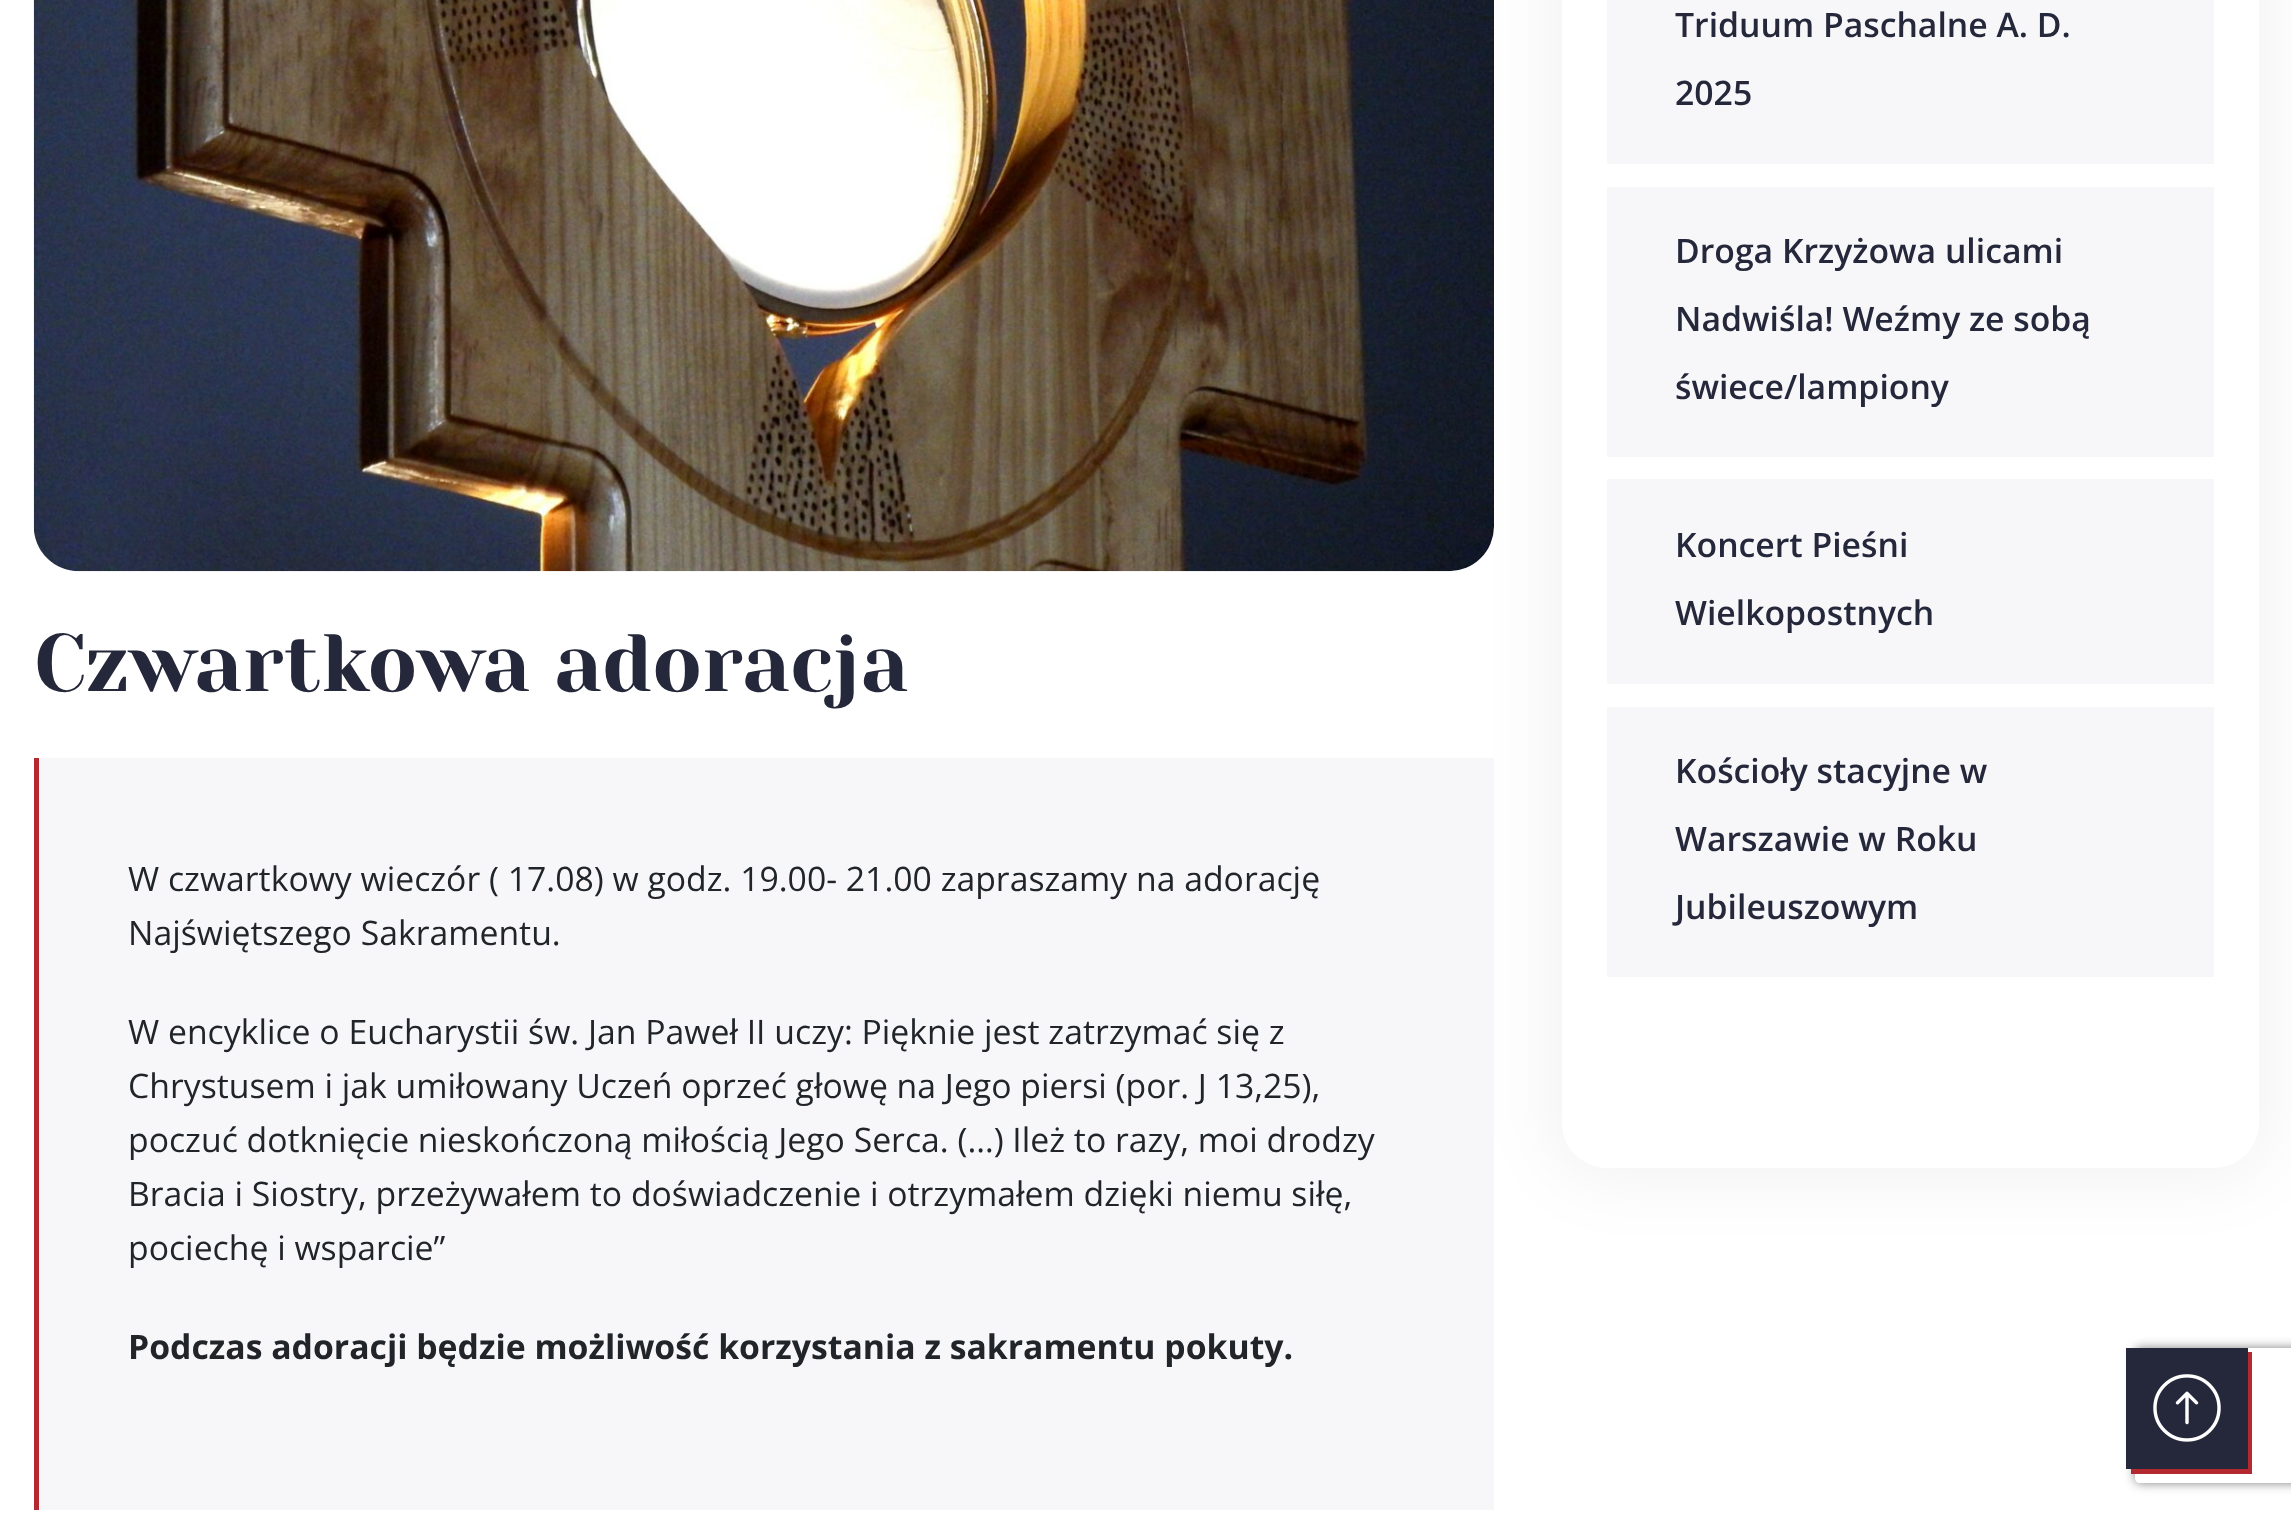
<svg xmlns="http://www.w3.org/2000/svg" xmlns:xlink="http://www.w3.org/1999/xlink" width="2291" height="1514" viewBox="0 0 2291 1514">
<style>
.cls-1{font:81px Yeseva One;fill:#25283a}
.cls-2{font:33.75px Open Sans;fill:#212529}
.cls-3{font:bold 33.75px Open Sans;fill:#212529}
.cls-4{font:600 33.75px Open Sans;fill:#25283a}
</style>
<defs>
<clipPath id="clip1"><path d="M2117 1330H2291V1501H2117ZM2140 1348H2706C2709 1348 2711 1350 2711 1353V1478C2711 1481 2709 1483 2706 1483H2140C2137 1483 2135 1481 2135 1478V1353C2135 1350 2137 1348 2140 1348Z" clip-rule="evenodd"/></clipPath>
</defs>
<rect width="100%" height="100%" fill="#ffffff"/>
<image xlink:href="image0.png" x="33" y="0" width="1461" height="572"/>
<rect fill="#f7f7fa" x="39" y="758" width="1455" height="752"/>
<rect fill="#b4292f" x="34" y="758" width="5" height="752"/>
<rect fill="#000000" fill-opacity="0.05" filter="blur(34px)" x="1550" y="-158" width="720" height="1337" rx="56"/>
<rect fill="#ffffff" x="1562" y="-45" width="697" height="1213" rx="45"/>
<rect fill="#f7f7fa" x="1607" y="0" width="607" height="164"/>
<rect fill="#f7f7fa" x="1607" y="187" width="607" height="270"/>
<rect fill="#f7f7fa" x="1607" y="479" width="607" height="205"/>
<rect fill="#f7f7fa" x="1607" y="707" width="607" height="270"/>
<g clip-path="url(#clip1)">
<rect fill="#808080" filter="blur(5.5px)" x="2135" y="1348" width="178" height="135" rx="5"/>
</g>
<path fill="#b4292f" d="M2131 1469V1474H2252V1352H2248V1469Z"/>
<rect fill="#25283a" x="2126" y="1348" width="122" height="121"/>
<image xlink:href="image1.png" x="2153" y="1374" width="68" height="68"/>
<text class="cls-1" x="34" y="691">Czwartkowa adoracja</text>
<text class="cls-2"><tspan x="128" y="891">W czwartkowy wieczór ( 17.08) w godz. 19.00- 21.00 zapraszamy na adorację</tspan><tspan x="128" y="945">Najświętszego Sakramentu.</tspan></text>
<text class="cls-2"><tspan x="128" y="1044">W encyklice o Eucharystii św. Jan Paweł II uczy: Pięknie jest zatrzymać się z</tspan><tspan x="128" y="1098">Chrystusem i jak umiłowany Uczeń oprzeć głowę na Jego piersi (por. J 13,25),</tspan><tspan x="128" y="1152">poczuć dotknięcie nieskończoną miłością Jego Serca. (…) Ileż to razy, moi drodzy</tspan><tspan x="128" y="1206">Bracia i Siostry, przeżywałem to doświadczenie i otrzymałem dzięki niemu siłę,</tspan><tspan x="128" y="1260">pociechę i wsparcie”</tspan></text>
<text class="cls-3" x="128" y="1359">Podczas adoracji będzie możliwość korzystania z sakramentu pokuty.</text>
<text class="cls-4" x="1675" y="37">Triduum Paschalne A. D.</text>
<text class="cls-4" x="1675" y="105">2025</text>
<text class="cls-4" x="1675" y="263">Droga Krzyżowa ulicami</text>
<text class="cls-4" x="1675" y="331">Nadwiśla! Weźmy ze sobą</text>
<text class="cls-4" x="1675" y="399">świece/lampiony</text>
<text class="cls-4" x="1675" y="557">Koncert Pieśni</text>
<text class="cls-4" x="1675" y="625">Wielkopostnych</text>
<text class="cls-4" x="1675" y="783">Kościoły stacyjne w</text>
<text class="cls-4" x="1675" y="851">Warszawie w Roku</text>
<text class="cls-4" x="1675" y="919">Jubileuszowym</text>
</svg>
